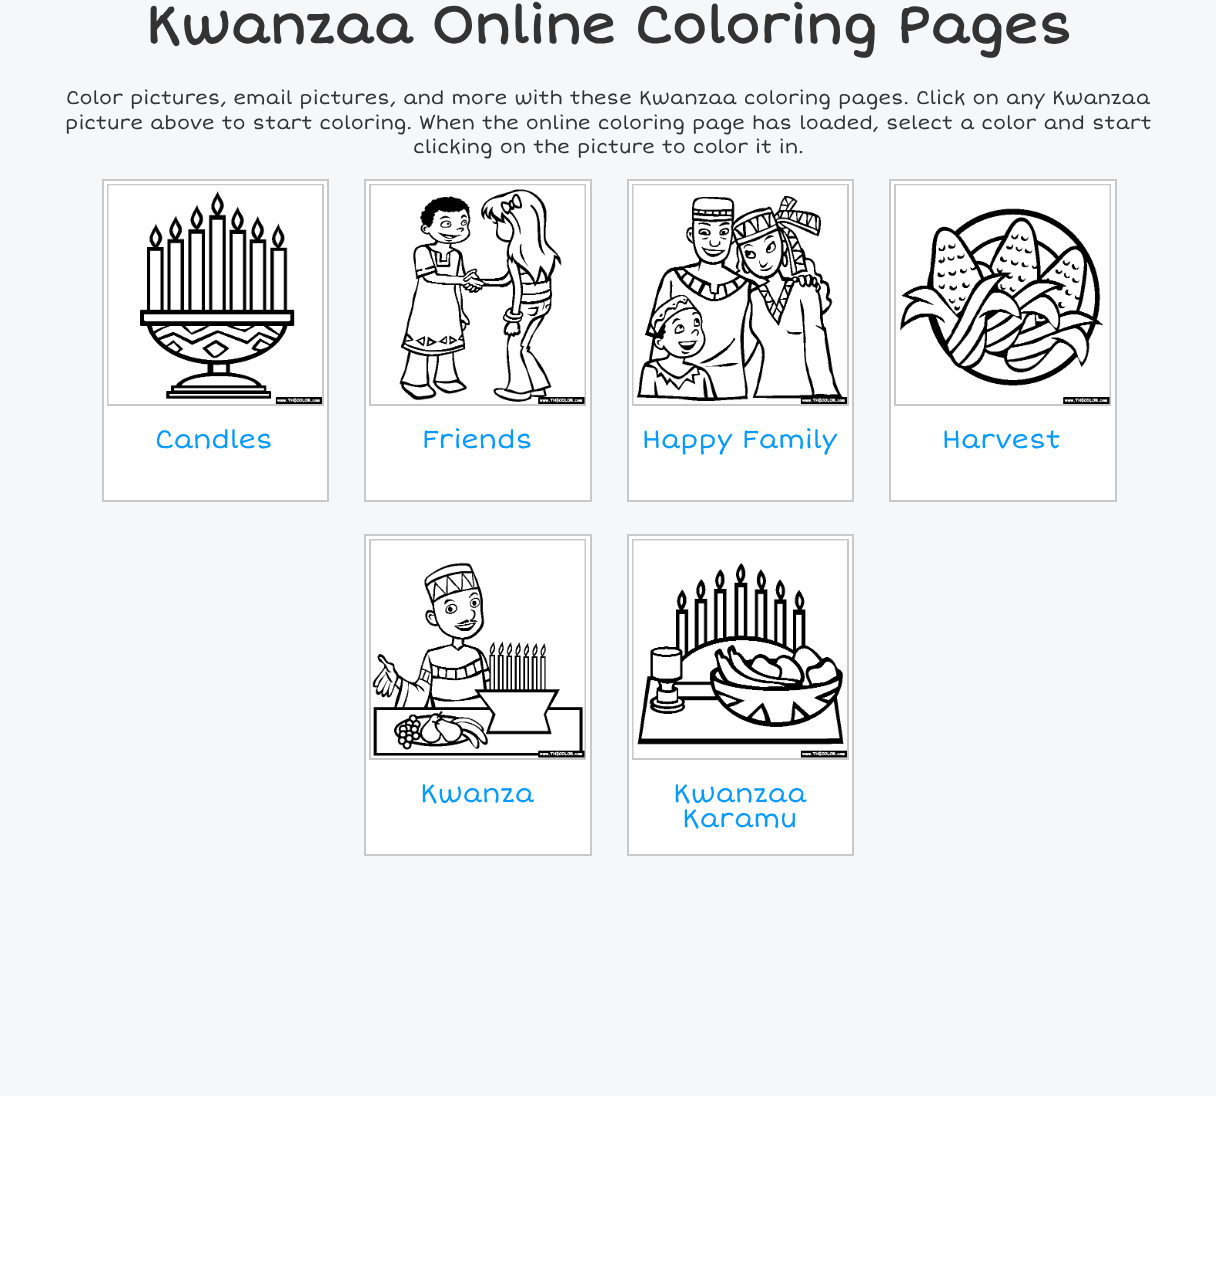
<svg xmlns="http://www.w3.org/2000/svg" xmlns:xlink="http://www.w3.org/1999/xlink" width="1216" height="1271" viewBox="0 0 1216 1271">
<style>
.cls-1{font:bold 52.5px Short Stack;fill:#333333}
.cls-2{font:19.25px Short Stack;fill:#333333}
.cls-3{font:26.25px Short Stack;fill:#099aff}
</style>
<rect width="100%" height="100%" fill="#ffffff"/>
<rect fill="#f6f7f9" x="0" y="0" width="1216" height="1096"/>
<rect fill="#ffffff" stroke="#c9c9c9" stroke-width="2" x="103" y="180" width="225" height="321"/>
<rect fill="none" stroke="#c9c9c9" stroke-width="2" x="108" y="185" width="215" height="220"/>
<image xlink:href="image0.png" x="108" y="185" width="214" height="219"/>
<rect fill="#ffffff" stroke="#c9c9c9" stroke-width="2" x="365" y="180" width="226" height="321"/>
<rect fill="none" stroke="#c9c9c9" stroke-width="2" x="370" y="185" width="215" height="220"/>
<image xlink:href="image1.png" x="371" y="185" width="214" height="219"/>
<rect fill="#ffffff" stroke="#c9c9c9" stroke-width="2" x="628" y="180" width="225" height="321"/>
<rect fill="none" stroke="#c9c9c9" stroke-width="2" x="633" y="185" width="215" height="220"/>
<image xlink:href="image2.png" x="633" y="185" width="214" height="219"/>
<rect fill="#ffffff" stroke="#c9c9c9" stroke-width="2" x="890" y="180" width="226" height="321"/>
<rect fill="none" stroke="#c9c9c9" stroke-width="2" x="895" y="185" width="215" height="220"/>
<image xlink:href="image3.png" x="896" y="185" width="214" height="219"/>
<rect fill="#ffffff" stroke="#c9c9c9" stroke-width="2" x="365" y="535" width="226" height="320"/>
<rect fill="none" stroke="#c9c9c9" stroke-width="2" x="370" y="540" width="215" height="219"/>
<image xlink:href="image4.png" x="371" y="540" width="214" height="218"/>
<rect fill="#ffffff" stroke="#c9c9c9" stroke-width="2" x="628" y="535" width="225" height="320"/>
<rect fill="none" stroke="#c9c9c9" stroke-width="2" x="633" y="540" width="215" height="219"/>
<image xlink:href="image5.png" x="633" y="540" width="214" height="218"/>
<text class="cls-1" x="145" y="43">Kwanzaa Online Coloring Pages</text>
<text class="cls-2" x="66" y="104">Color pictures, email pictures, and more with these Kwanzaa coloring pages. Click on any Kwanzaa</text>
<text class="cls-2" x="65" y="129">picture above to start coloring. When the online coloring page has loaded, select a color and start</text>
<text class="cls-2" x="413" y="153">clicking on the picture to color it in.</text>
<text class="cls-3" x="155" y="448">Candles</text>
<text class="cls-3" x="422" y="448">Friends</text>
<text class="cls-3" x="642" y="448">Happy Family</text>
<text class="cls-3" x="942" y="448">Harvest</text>
<text class="cls-3" x="420" y="802">Kwanza</text>
<text class="cls-3" x="673" y="802">Kwanzaa</text>
<text class="cls-3" x="682" y="827">Karamu</text>
</svg>
